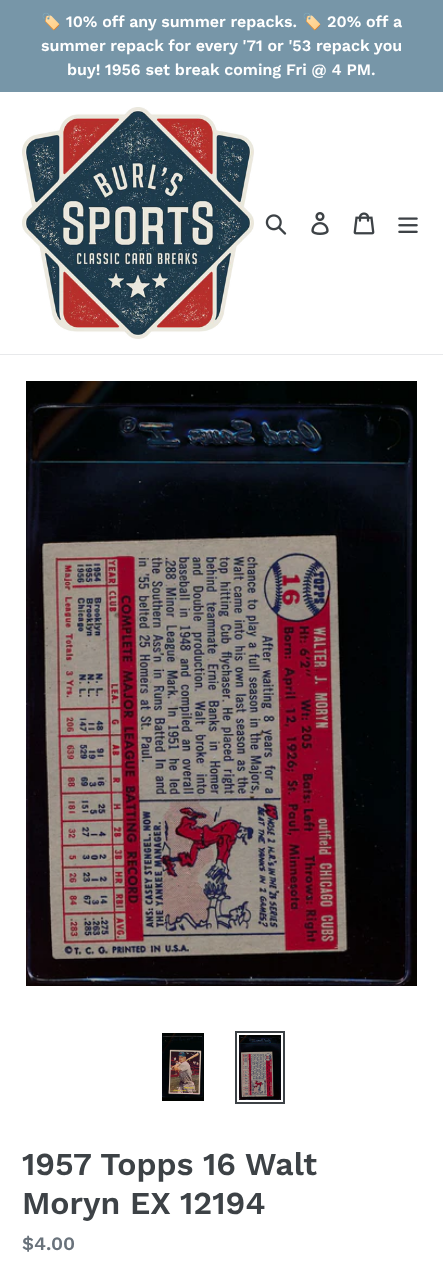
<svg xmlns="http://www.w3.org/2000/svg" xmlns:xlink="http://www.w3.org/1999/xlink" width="443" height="1266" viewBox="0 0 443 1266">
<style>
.cls-1{font:bold 16px Noto Color Emoji;fill:#ffffff}
.cls-2{font:600 16px Work Sans;fill:#ffffff}
.cls-3{font:600 32px Work Sans;fill:#3d4246}
.cls-4{font:600 19px Work Sans;fill:#69727b}
</style>
<rect width="100%" height="100%" fill="#ffffff"/>
<rect fill="#7796a8" x="0" y="0" width="443" height="92"/>
<rect fill="#e8e9eb" x="0" y="354" width="443" height="1"/>
<image xlink:href="image0.png" x="22" y="107" width="232" height="232"/>
<image xlink:href="image1.png" x="265" y="214" width="22" height="21"/>
<image xlink:href="image2.png" x="311" y="212" width="18" height="23"/>
<image xlink:href="image3.png" x="353" y="212" width="22" height="23"/>
<image xlink:href="image4.png" x="398" y="217" width="20" height="16"/>
<image xlink:href="image5.png" x="26" y="381" width="391" height="605"/>
<image xlink:href="image6.png" x="162" y="1033" width="42" height="68"/>
<rect fill="none" stroke="#3d4246" stroke-width="2" x="236" y="1032" width="48" height="71"/>
<image xlink:href="image7.png" x="239" y="1035" width="42" height="65"/>
<text class="cls-1" x="41" y="27">🏷️</text>
<text class="cls-2" x="66" y="27">10% off any summer repacks.</text>
<text class="cls-1" x="302" y="27">🏷️</text>
<text class="cls-2" x="327" y="27">20% off a</text>
<text class="cls-2" x="41" y="51">summer repack for every '71 or '53 repack you</text>
<text class="cls-2" x="67" y="75">buy! 1956 set break coming Fri @ 4 PM.</text>
<text class="cls-3" x="22" y="1175">1957 Topps</text>
<text class="cls-3" x="203" y="1175">16 Walt</text>
<text class="cls-3" x="22" y="1214">Moryn EX 12194</text>
<text class="cls-4" x="22" y="1250">$4.00</text>
</svg>
